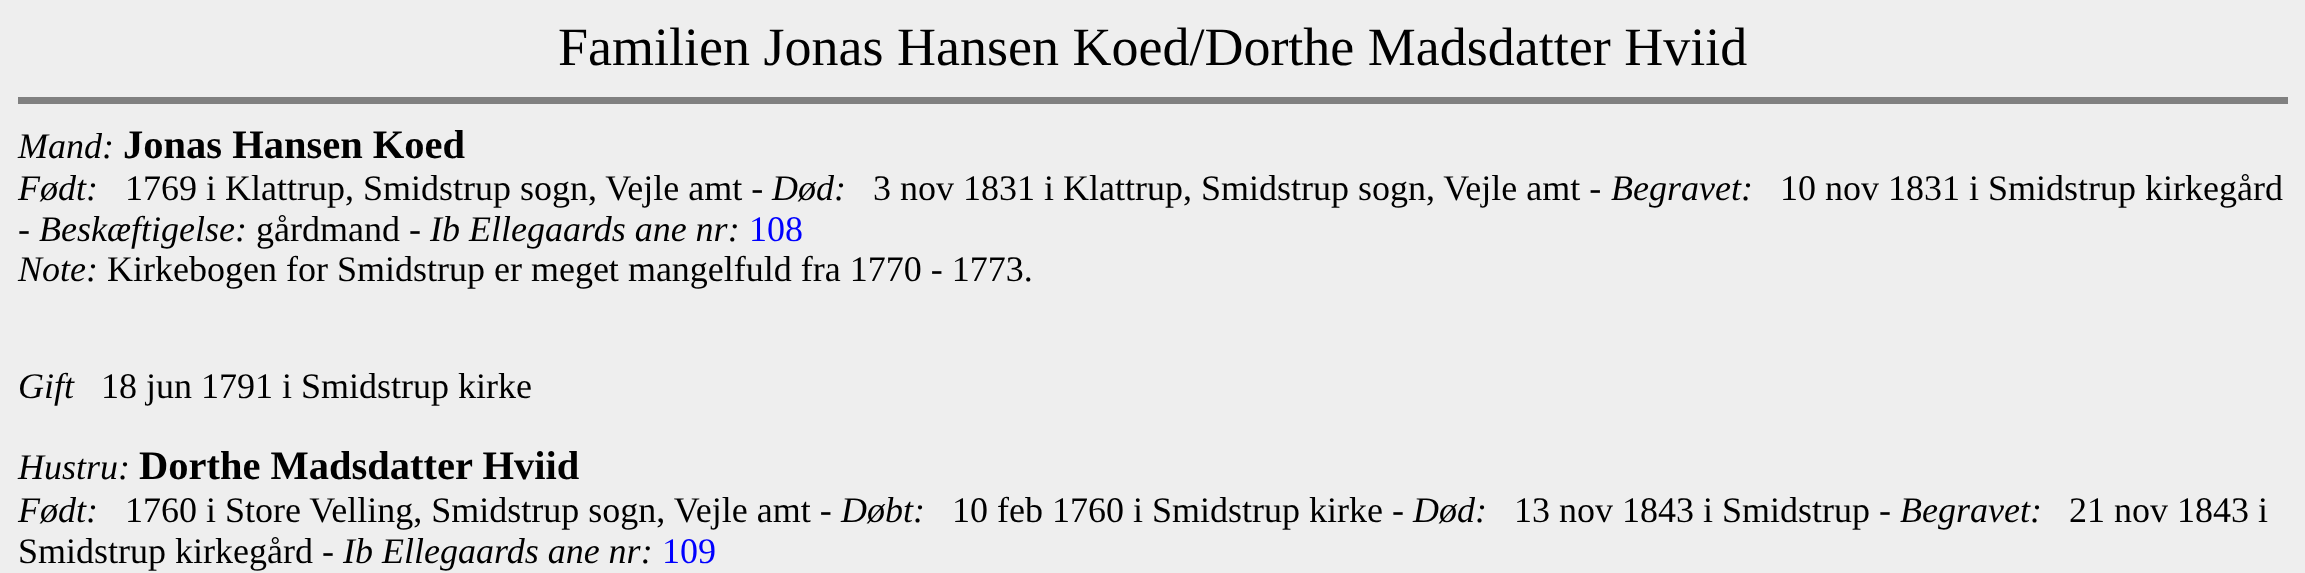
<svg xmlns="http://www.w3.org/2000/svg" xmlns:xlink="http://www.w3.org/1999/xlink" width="2305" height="573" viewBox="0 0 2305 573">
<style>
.cls-1{font:54px Liberation Serif;fill:#000000}
.cls-2{font:italic 36px Liberation Serif;fill:#000000}
.cls-3{font:bold 40.5px Liberation Serif;fill:#000000}
.cls-4{font:36px Liberation Serif;fill:#000000}
.cls-5{font:36px Liberation Serif;fill:#0000ff}
</style>
<rect width="100%" height="100%" fill="#eeeeee"/>
<rect fill="#808080" x="18" y="97" width="2270" height="7"/>
<text class="cls-1" x="558" y="65">Familien Jonas Hansen Koed/Dorthe Madsdatter Hviid</text>
<text class="cls-2" x="18" y="158">Mand:</text>
<text class="cls-3" x="123" y="158">Jonas Hansen Koed</text>
<text class="cls-2" x="18" y="200">Født:</text>
<text class="cls-4" x="125" y="200">1769 i Klattrup, Smidstrup sogn, Vejle amt -</text>
<text class="cls-2" x="772" y="200">Død:</text>
<text class="cls-4" x="873" y="200">3 nov 1831 i Klattrup, Smidstrup sogn, Vejle amt -</text>
<text class="cls-2" x="1611" y="200">Begravet:</text>
<text class="cls-4" x="1780" y="200">10 nov 1831 i Smidstrup kirkegård</text>
<text class="cls-4" x="18" y="241">-</text>
<text class="cls-2" x="39" y="241">Beskæftigelse:</text>
<text class="cls-4" x="256" y="241">gårdmand -</text>
<text class="cls-2" x="430" y="241">Ib Ellegaards ane nr:</text>
<text class="cls-5" x="749" y="241">108</text>
<text class="cls-2" x="18" y="281">Note:</text>
<text class="cls-4" x="107" y="281">Kirkebogen for Smidstrup er meget mangelfuld fra 1770 - 1773.</text>
<text class="cls-2" x="18" y="398">Gift</text>
<text class="cls-4" x="101" y="398">18 jun 1791 i Smidstrup kirke</text>
<text class="cls-2" x="18" y="479">Hustru:</text>
<text class="cls-3" x="139" y="479">Dorthe Madsdatter Hviid</text>
<text class="cls-2" x="18" y="522">Født:</text>
<text class="cls-4" x="125" y="522">1760 i Store Velling, Smidstrup sogn, Vejle amt -</text>
<text class="cls-2" x="841" y="522">Døbt:</text>
<text class="cls-4" x="952" y="522">10 feb 1760 i Smidstrup kirke -</text>
<text class="cls-2" x="1413" y="522">Død:</text>
<text class="cls-4" x="1514" y="522">13 nov 1843 i Smidstrup -</text>
<text class="cls-2" x="1900" y="522">Begravet:</text>
<text class="cls-4" x="2069" y="522">21 nov 1843 i</text>
<text class="cls-4" x="18" y="563">Smidstrup kirkegård -</text>
<text class="cls-2" x="343" y="563">Ib Ellegaards ane nr:</text>
<text class="cls-5" x="662" y="563">109</text>
</svg>
